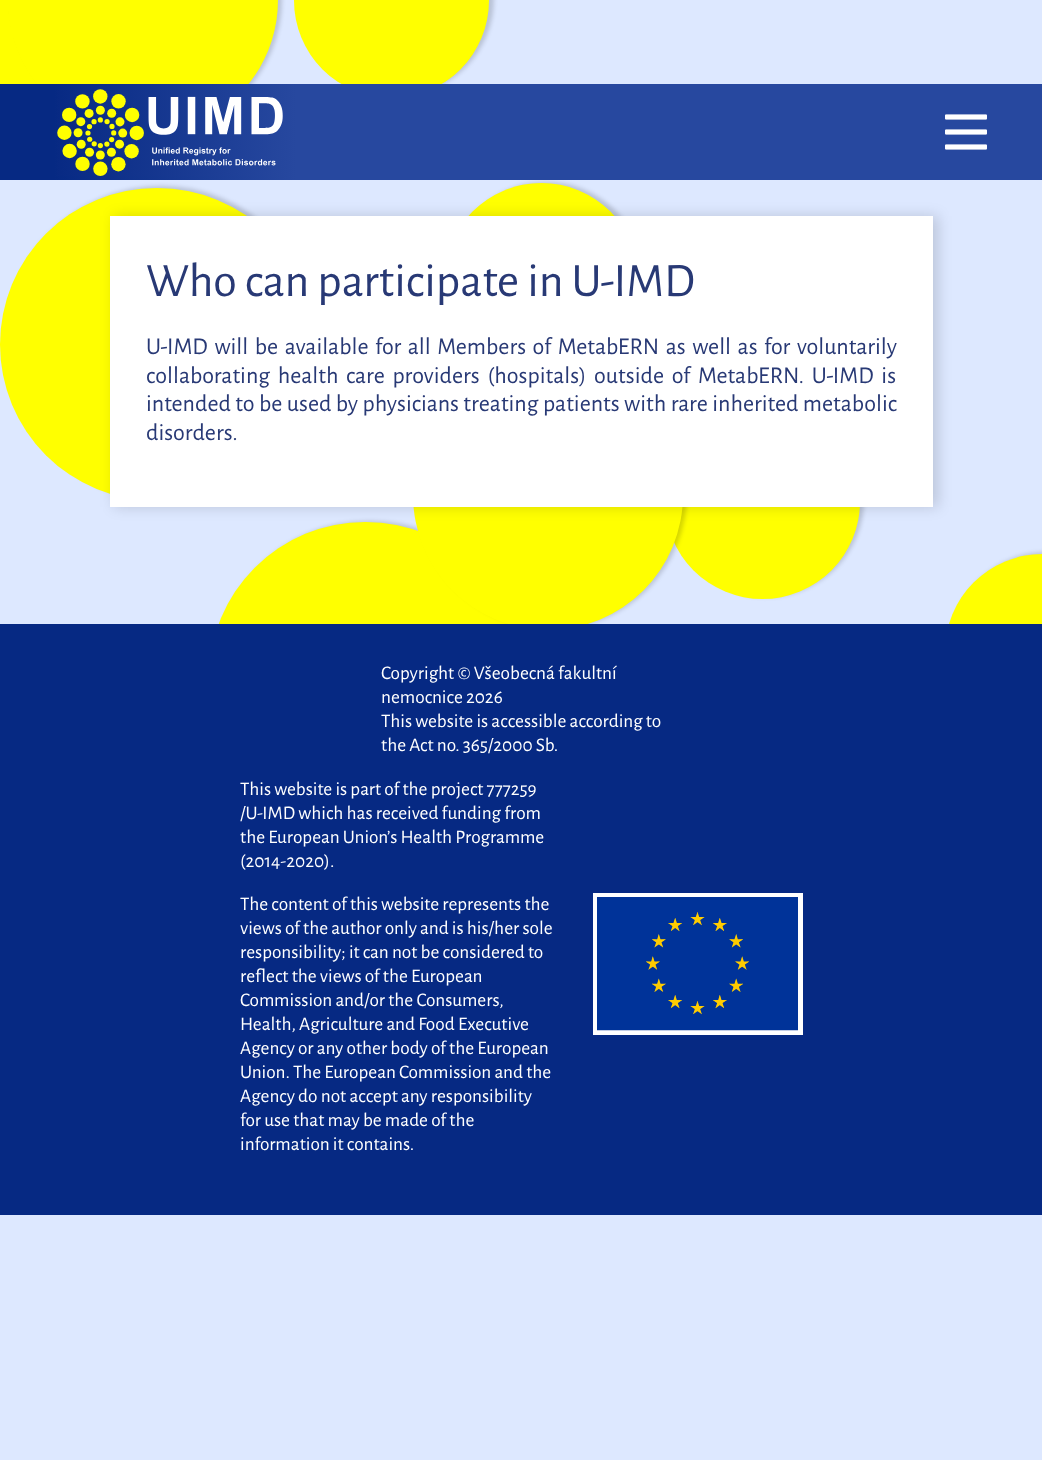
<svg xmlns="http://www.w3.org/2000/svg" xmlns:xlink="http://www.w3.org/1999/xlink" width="1042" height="1460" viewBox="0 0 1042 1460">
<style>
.cls-1{font:48px Alegreya Sans;fill:#283975}
.cls-2{font:24px Alegreya Sans;fill:#283975}
.cls-3{font:19.25px Alegreya Sans;fill:#ffffff}
</style>
<defs>
<linearGradient id="g1" gradientUnits="userSpaceOnUse" x1="53" y1="132" x2="296" y2="132"><stop offset="0" stop-color="#062983"/><stop offset="1" stop-color="#27489f"/></linearGradient>
</defs>
<rect width="100%" height="100%" fill="#dde8ff"/>
<rect fill="#000000" fill-opacity="0.16" filter="blur(2px)" x="299" y="-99" width="195" height="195" rx="97.5"/>
<circle fill="#ffff00" cx="391.5" cy="0.5" r="97.5"/>
<rect fill="#ffff00" x="0" y="0" width="38" height="84"/>
<rect fill="#000000" fill-opacity="0.16" filter="blur(2px)" x="12" y="-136" width="270" height="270" rx="135"/>
<path fill="#ffff00" d="M8 0H278C278 74.5 217.5 135 143 135C68.5 135 8 74.5 8 0Z"/>
<rect fill="#000000" fill-opacity="0.16" filter="blur(2px)" x="449" y="182" width="195" height="195" rx="97.5"/>
<circle fill="#ffff00" cx="541.5" cy="280.5" r="97.5"/>
<rect fill="#000000" fill-opacity="0.16" filter="blur(2px)" x="669" y="402" width="195" height="195" rx="97.5"/>
<circle fill="#ffff00" cx="762.5" cy="501.5" r="97.5"/>
<rect fill="#000000" fill-opacity="0.16" filter="blur(2px)" x="213" y="521" width="314" height="312" rx="156"/>
<rect fill="#ffff00" x="209" y="522" width="313" height="312" rx="156"/>
<rect fill="#000000" fill-opacity="0.16" filter="blur(2px)" x="417" y="359" width="270" height="270" rx="135"/>
<circle fill="#ffff00" cx="548" cy="495" r="135"/>
<rect fill="#000000" fill-opacity="0.16" filter="blur(2px)" x="950" y="552" width="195" height="195" rx="97.5"/>
<circle fill="#ffff00" cx="1042.5" cy="651.5" r="97.5"/>
<rect fill="#000000" fill-opacity="0.16" filter="blur(2px)" x="5" y="186" width="313" height="314" rx="156.5"/>
<rect fill="#ffff00" x="0" y="188" width="314" height="313" rx="156.5"/>
<rect fill="#27489f" x="296" y="84" width="746" height="96"/>
<rect fill="#062983" x="0" y="84" width="53" height="96"/>
<rect fill="url(#g1)" x="53" y="84" width="243" height="96"/>
<image xlink:href="image0.png" x="57" y="89" width="226" height="87"/>
<image xlink:href="image1.png" x="945" y="114" width="42" height="36"/>
<rect fill="#000000" fill-opacity="0.15" filter="blur(7px)" x="114" y="216" width="824" height="291"/>
<rect fill="#ffffff" x="110" y="216" width="823" height="291"/>
<rect fill="#062983" x="0" y="624" width="1042" height="591"/>
<rect fill="none" stroke="#ffffff" stroke-width="5" x="595.5" y="895.5" width="205" height="137"/>
<image xlink:href="image2.png" x="597" y="897" width="201" height="134"/>
<text class="cls-1" x="146" y="296">Who can participate in U-IMD</text>
<text class="cls-2"><tspan x="146" y="354" word-spacing="2.6">U-IMD will be available for all Members of MetabERN as well as for voluntarily</tspan><tspan x="146" y="383" word-spacing="3.75">collaborating health care providers (hospitals) outside of MetabERN. U-IMD is</tspan><tspan x="146" y="411" word-spacing="0.5">intended to be used by physicians treating patients with rare inherited metabolic</tspan><tspan x="146" y="440">disorders.</tspan></text>
<text class="cls-3"><tspan x="381" y="679">Copyright © Všeobecná fakultní</tspan><tspan x="381" y="703">nemocnice 2026</tspan><tspan x="381" y="727">This website is accessible according to</tspan><tspan x="381" y="751">the Act no. 365/2000 Sb.</tspan></text>
<text class="cls-3"><tspan x="240" y="795">This website is part of the project 777259</tspan><tspan x="240" y="819">/U-IMD which has received funding from</tspan><tspan x="240" y="843">the European Union’s Health Programme</tspan><tspan x="240" y="867">(2014-2020).</tspan></text>
<text class="cls-3"><tspan x="240" y="910">The content of this website represents the</tspan><tspan x="240" y="934">views of the author only and is his/her sole</tspan><tspan x="240" y="958">responsibility; it can not be considered to</tspan><tspan x="240" y="982">reflect the views of the European</tspan><tspan x="240" y="1006">Commission and/or the Consumers,</tspan><tspan x="240" y="1030">Health, Agriculture and Food Executive</tspan><tspan x="240" y="1054">Agency or any other body of the European</tspan><tspan x="240" y="1078">Union. The European Commission and the</tspan><tspan x="240" y="1102">Agency do not accept any responsibility</tspan><tspan x="240" y="1126">for use that may be made of the</tspan><tspan x="240" y="1150">information it contains.</tspan></text>
</svg>
